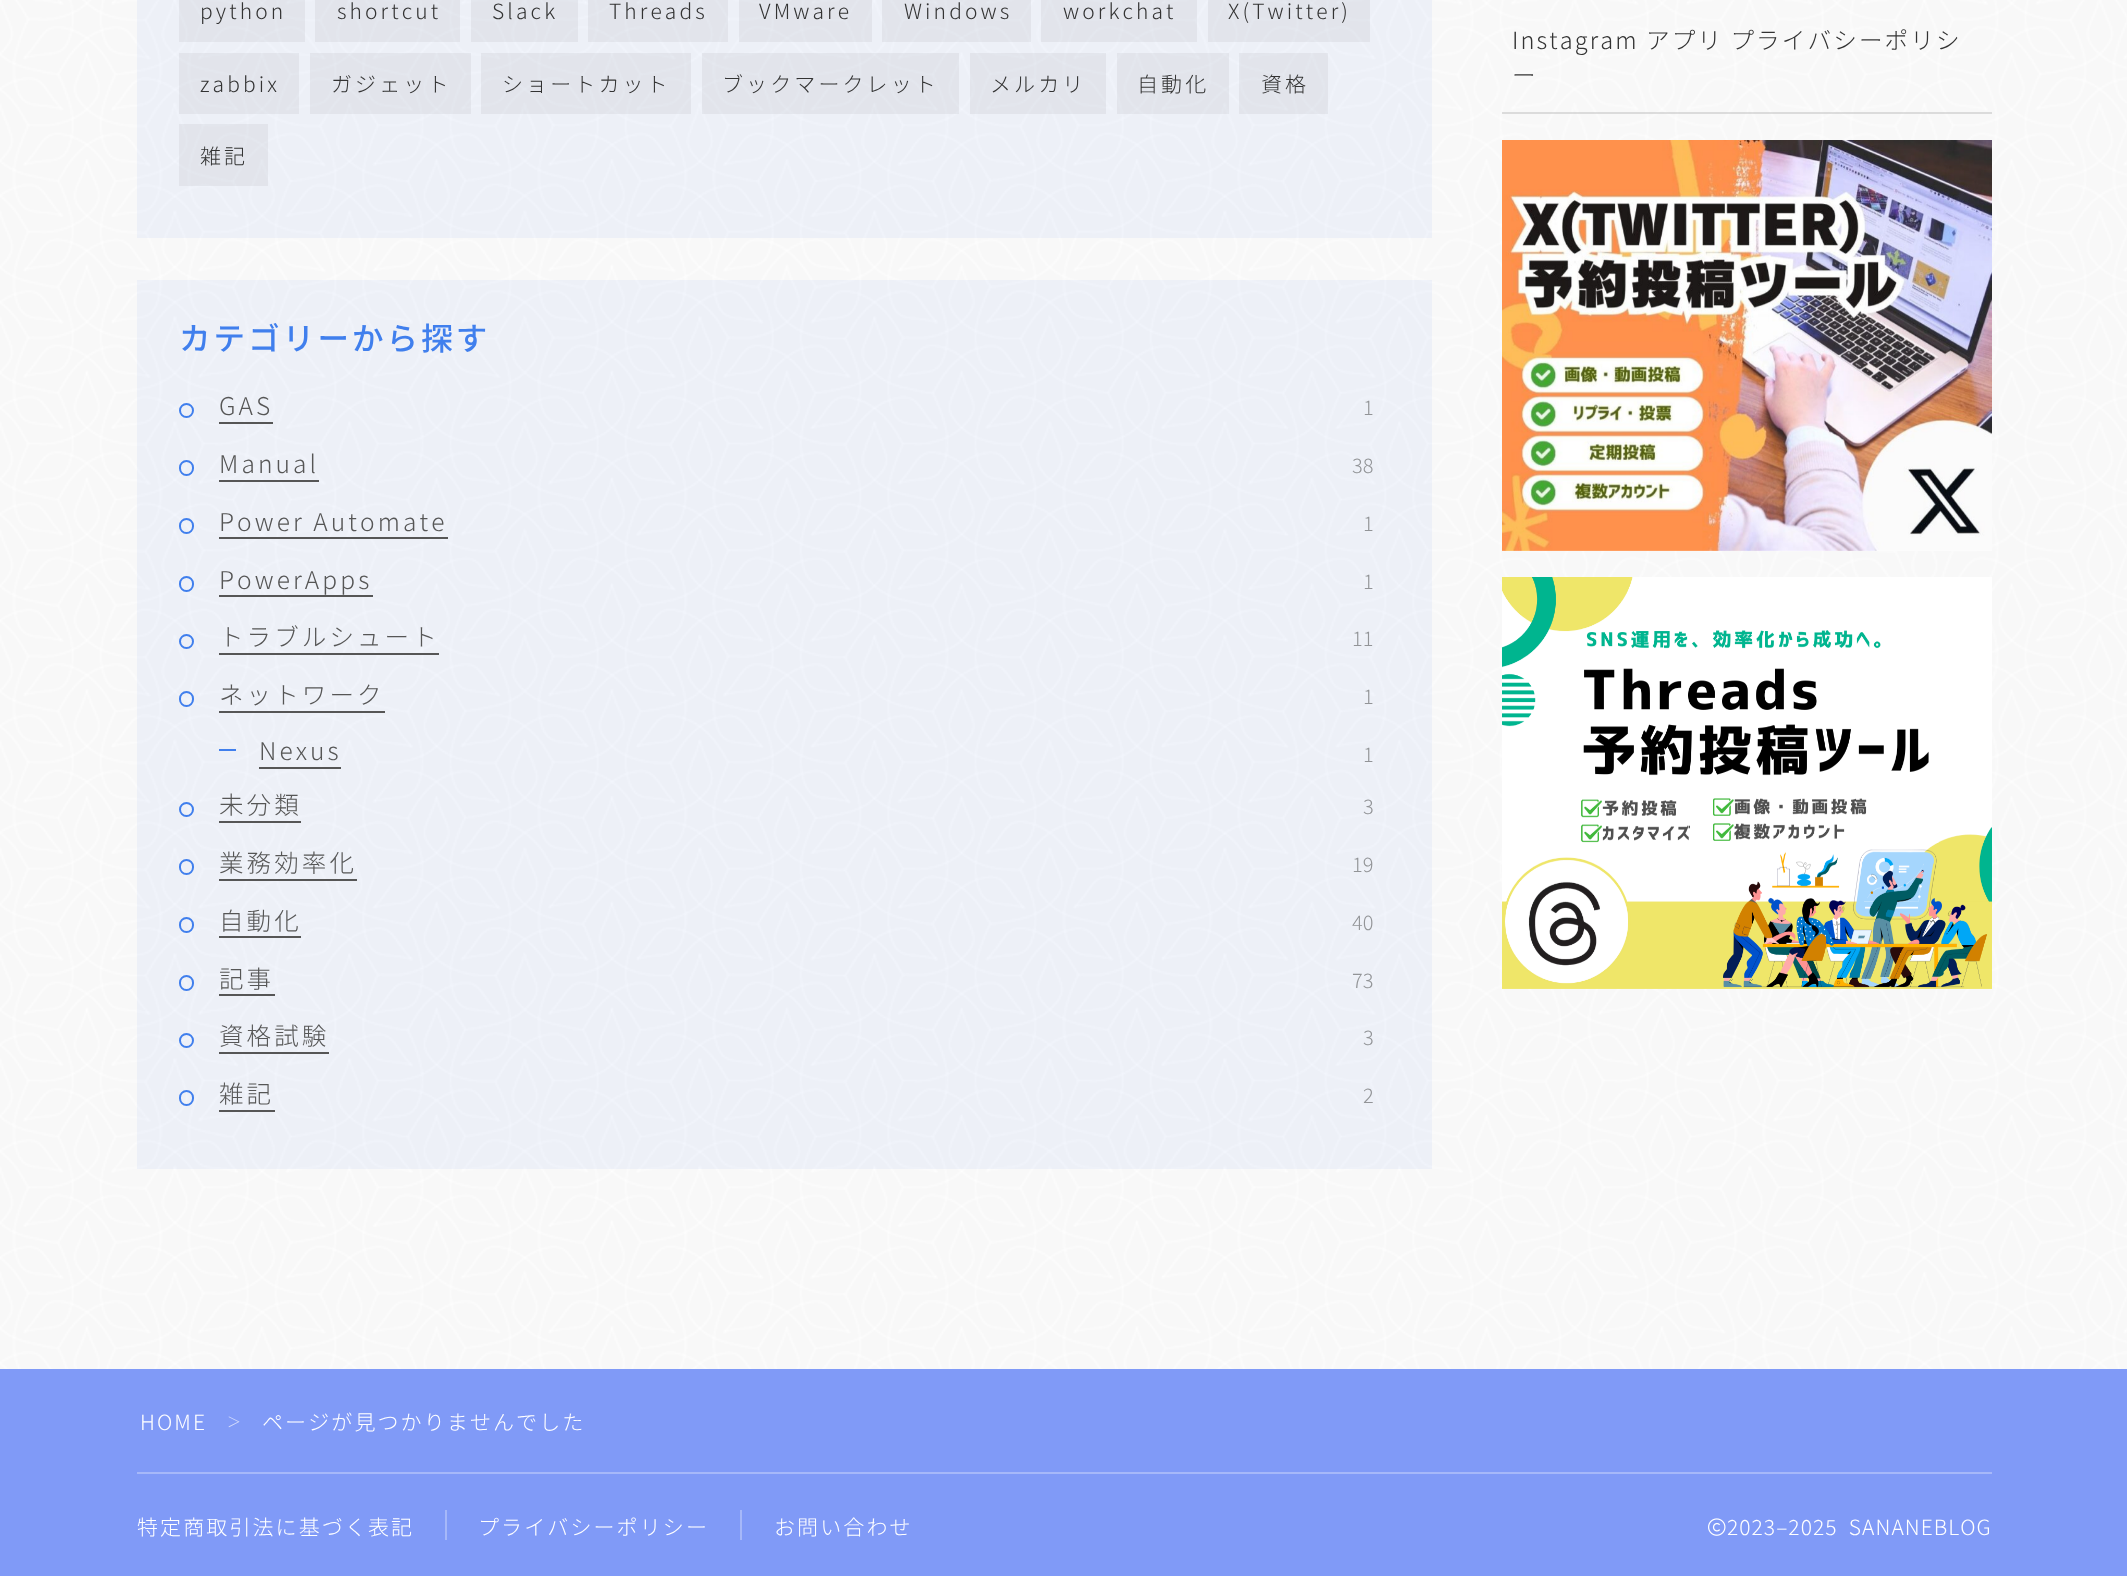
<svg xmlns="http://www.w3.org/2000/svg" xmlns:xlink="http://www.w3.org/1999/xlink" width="2127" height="1576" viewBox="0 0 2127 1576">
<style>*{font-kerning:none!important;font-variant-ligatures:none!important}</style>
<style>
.cls-1{font:300 21px Noto Sans JP;letter-spacing:3.1px;fill:#333333}
.cls-2{font:500 31.5px Noto Sans JP;letter-spacing:3.1px;fill:#407fed}
.cls-3{font:300 24.5px Noto Sans JP;letter-spacing:3.1px;fill:#565656}
.cls-4{font:300 20px Noto Sans JP;fill:#929497}
.cls-5{font:300 23.6px Noto Sans JP;letter-spacing:2.1px;fill:#333333}
.cls-6{font:300 21px Noto Sans JP;letter-spacing:2.1px;fill:#ffffff}
.cls-7{font:300 14px Noto Sans JP;letter-spacing:1px;fill:#d9e1fd}
.cls-8{font:300 21px Noto Sans JP;letter-spacing:1.05px;fill:#ffffff}
</style>
<rect width="100%" height="100%" fill="#f8f8f8"/>
<image xlink:href="image0.png" x="0" y="0" width="2127" height="1369"/>
<rect fill="#407fed" fill-opacity="0.06" x="137" y="0" width="1295" height="238"/>
<rect fill="#333333" fill-opacity="0.06" x="179" y="0" width="126" height="42"/>
<rect fill="#333333" fill-opacity="0.06" x="315" y="0" width="145" height="42"/>
<rect fill="#333333" fill-opacity="0.06" x="471" y="0" width="107" height="42"/>
<rect fill="#333333" fill-opacity="0.06" x="588" y="0" width="140" height="42"/>
<rect fill="#333333" fill-opacity="0.06" x="739" y="0" width="133" height="42"/>
<rect fill="#333333" fill-opacity="0.06" x="882" y="0" width="149" height="42"/>
<rect fill="#333333" fill-opacity="0.06" x="1041" y="0" width="156" height="42"/>
<rect fill="#333333" fill-opacity="0.06" x="1208" y="0" width="162" height="42"/>
<rect fill="#333333" fill-opacity="0.06" x="179" y="53" width="120" height="61"/>
<rect fill="#333333" fill-opacity="0.06" x="310" y="53" width="161" height="61"/>
<rect fill="#333333" fill-opacity="0.06" x="481" y="53" width="210" height="61"/>
<rect fill="#333333" fill-opacity="0.06" x="702" y="53" width="257" height="61"/>
<rect fill="#333333" fill-opacity="0.06" x="970" y="53" width="136" height="61"/>
<rect fill="#333333" fill-opacity="0.06" x="1117" y="53" width="112" height="61"/>
<rect fill="#333333" fill-opacity="0.06" x="1239" y="53" width="89" height="61"/>
<rect fill="#333333" fill-opacity="0.06" x="179" y="124" width="89" height="62"/>
<rect fill="#407fed" fill-opacity="0.06" x="137" y="280" width="1295" height="889"/>
<circle fill="none" stroke="#407fed" stroke-width="2" cx="186.5" cy="410.5" r="6.5"/>
<rect fill="#565656" x="219" y="422" width="54" height="2"/>
<rect fill="none" stroke="#407fed" stroke-width="2" x="180" y="461" width="13" height="14" rx="6.5"/>
<rect fill="#565656" x="219" y="480" width="100" height="2"/>
<rect fill="none" stroke="#407fed" stroke-width="2" x="180" y="519" width="13" height="14" rx="6.5"/>
<rect fill="#565656" x="219" y="537" width="229" height="2"/>
<rect fill="none" stroke="#407fed" stroke-width="2" x="180" y="577" width="13" height="14" rx="6.5"/>
<rect fill="#565656" x="219" y="595" width="154" height="2"/>
<circle fill="none" stroke="#407fed" stroke-width="2" cx="186.5" cy="641.5" r="6.5"/>
<rect fill="#565656" x="219" y="653" width="220" height="2"/>
<rect fill="none" stroke="#407fed" stroke-width="2" x="180" y="692" width="13" height="14" rx="6.5"/>
<rect fill="#565656" x="219" y="711" width="166" height="2"/>
<rect fill="#407fed" x="219" y="749" width="17" height="2"/>
<rect fill="#565656" x="259" y="767" width="82" height="2"/>
<circle fill="none" stroke="#407fed" stroke-width="2" cx="186.5" cy="809.5" r="6.5"/>
<rect fill="#565656" x="219" y="821" width="82" height="2"/>
<rect fill="none" stroke="#407fed" stroke-width="2" x="180" y="860" width="13" height="14" rx="6.5"/>
<rect fill="#565656" x="219" y="879" width="138" height="2"/>
<rect fill="none" stroke="#407fed" stroke-width="2" x="180" y="918" width="13" height="14" rx="6.5"/>
<rect fill="#565656" x="219" y="936" width="82" height="2"/>
<rect fill="none" stroke="#407fed" stroke-width="2" x="180" y="976" width="13" height="14" rx="6.5"/>
<rect fill="#565656" x="219" y="994" width="56" height="2"/>
<circle fill="none" stroke="#407fed" stroke-width="2" cx="186.5" cy="1040.5" r="6.5"/>
<rect fill="#565656" x="219" y="1052" width="110" height="2"/>
<rect fill="none" stroke="#407fed" stroke-width="2" x="180" y="1091" width="13" height="14" rx="6.5"/>
<rect fill="#565656" x="219" y="1110" width="56" height="2"/>
<rect fill="#333333" fill-opacity="0.15" x="1502" y="112" width="490" height="2"/>
<image xlink:href="image1.png" x="1502" y="140" width="490" height="411"/>
<image xlink:href="image2.png" x="1502" y="577" width="490" height="412"/>
<rect fill="#809af7" x="0" y="1369" width="2127" height="207"/>
<rect fill="#a6b8f9" x="137" y="1472" width="1855" height="2"/>
<rect fill="#a6b8f9" x="445" y="1510" width="2" height="30"/>
<rect fill="#a6b8f9" x="740" y="1510" width="2" height="30"/>
<image xlink:href="image3.png" x="1708" y="1518" width="18" height="18"/>
<text class="cls-1" x="200" y="19">python</text>
<text class="cls-1" x="337" y="19">shortcut</text>
<text class="cls-1" x="492" y="19">Slack</text>
<text class="cls-1" x="609" y="19">Threads</text>
<text class="cls-1" x="759" y="19">VMware</text>
<text class="cls-1" x="904" y="19">Windows</text>
<text class="cls-1" x="1063" y="19">workchat</text>
<text class="cls-1" x="1228" y="19">X(Twitter)</text>
<text class="cls-1" x="200" y="92">zabbix</text>
<text class="cls-1" x="331" y="92">ガジェット</text>
<text class="cls-1" x="502" y="92">ショートカット</text>
<text class="cls-1" x="722" y="92">ブックマークレット</text>
<text class="cls-1" x="990" y="92">メルカリ</text>
<text class="cls-1" x="1137" y="92">自動化</text>
<text class="cls-1" x="1261" y="92">資格</text>
<text class="cls-1" x="200" y="164">雑記</text>
<text class="cls-2" x="179" y="350">カテゴリーから探す</text>
<text class="cls-3" x="219" y="415">GAS</text>
<text class="cls-4" x="1363" y="415">1</text>
<text class="cls-3" x="219" y="473">Manual</text>
<text class="cls-4" x="1352" y="473">38</text>
<text class="cls-3" x="219" y="531">Power Automate</text>
<text class="cls-4" x="1363" y="531">1</text>
<text class="cls-3" x="219" y="589">PowerApps</text>
<text class="cls-4" x="1363" y="589">1</text>
<text class="cls-3" x="219" y="646">トラブルシュート</text>
<text class="cls-4" x="1352" y="646">11</text>
<text class="cls-3" x="219" y="704">ネットワーク</text>
<text class="cls-4" x="1363" y="704">1</text>
<text class="cls-3" x="259" y="760">Nexus</text>
<text class="cls-4" x="1363" y="762">1</text>
<text class="cls-3" x="219" y="814">未分類</text>
<text class="cls-4" x="1363" y="814">3</text>
<text class="cls-3" x="219" y="872">業務効率化</text>
<text class="cls-4" x="1352" y="872">19</text>
<text class="cls-3" x="219" y="930">自動化</text>
<text class="cls-4" x="1352" y="930">40</text>
<text class="cls-3" x="219" y="988">記事</text>
<text class="cls-4" x="1352" y="988">73</text>
<text class="cls-3" x="219" y="1045">資格試験</text>
<text class="cls-4" x="1363" y="1045">3</text>
<text class="cls-3" x="219" y="1103">雑記</text>
<text class="cls-4" x="1363" y="1103">2</text>
<text class="cls-5"><tspan x="1512" y="49">Instagram アプリ プライバシーポリシ</tspan><tspan x="1512" y="84">ー</tspan></text>
<text class="cls-6" x="140" y="1430">HOME</text>
<text class="cls-7" x="227" y="1427">＞</text>
<text class="cls-6" x="262" y="1430">ページが見つかりませんでした</text>
<text class="cls-6" x="137" y="1535">特定商取引法に基づく表記</text>
<text class="cls-6" x="478" y="1535">プライバシーポリシー</text>
<text class="cls-6" x="774" y="1535">お問い合わせ</text>
<text class="cls-8" xml:space="preserve" x="1727" y="1535">2023–2025  SANANEBLOG</text>
</svg>
